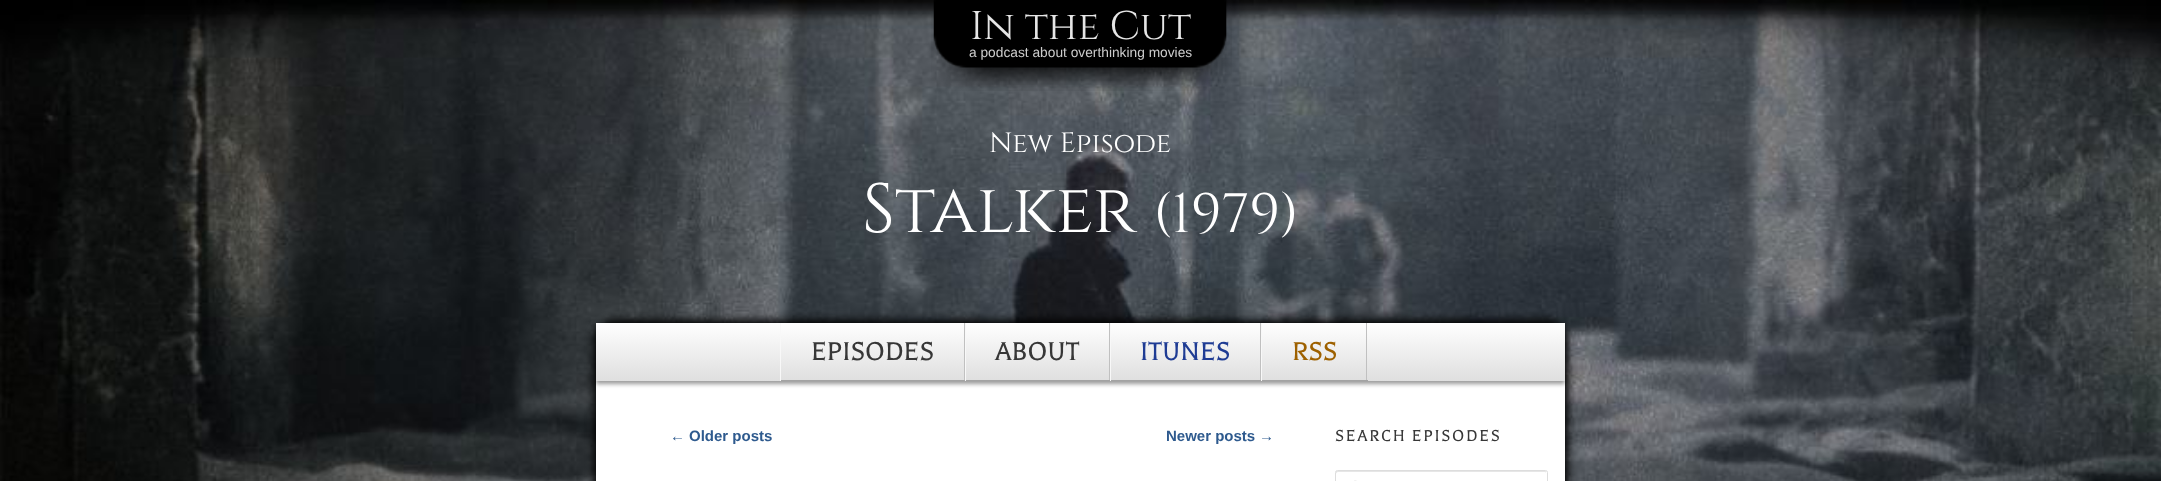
<svg xmlns="http://www.w3.org/2000/svg" xmlns:xlink="http://www.w3.org/1999/xlink" width="2161" height="481" viewBox="0 0 2161 481">
<style>
.cls-1{font:40px Cinzel;fill:#e6e6e6}
.cls-2{font:13.75px Liberation Sans;fill:#cccccc}
.cls-3{font:28px Cinzel;fill:#ffffff}
.cls-4{font:69.5px Cinzel;fill:#ffffff}
.cls-5{font:55.5px Cinzel;fill:#ffffff}
.cls-6{font:29.25px Balthazar;fill:#373737}
.cls-7{font:29.25px Balthazar;fill:#1f3c94}
.cls-8{font:29.25px Balthazar;fill:#9e6100}
.cls-9{font:15px Liberation Sans;fill:#2e5a8e}
.cls-10{font:bold 15px Liberation Sans;fill:#2e5a8e}
.cls-11{font:18px Balthazar;letter-spacing:1.75px;fill:#373737}
</style>
<defs>
<linearGradient id="g1" gradientUnits="userSpaceOnUse" x1="1081" y1="322" x2="1081" y2="381"><stop offset="0" stop-color="#ffffff"/><stop offset="1" stop-color="#dfdfdf"/></linearGradient>
</defs>
<rect width="100%" height="100%" fill="#ffffff"/>
<image xlink:href="image0.png" x="0" y="0" width="2161" height="481"/>
<image xlink:href="image1.png" x="931" y="0" width="301" height="91"/>
<rect fill="#000000" filter="blur(4px)" x="594" y="320" width="974" height="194" rx="21"/>
<rect fill="#ffffff" x="596" y="381" width="969" height="100"/>
<rect fill="#000000" fill-opacity="0.4" filter="blur(2px)" x="596" y="325" width="969" height="59"/>
<rect fill="url(#g1)" x="596" y="323" width="969" height="58"/>
<rect fill="#c0c0c0" x="964" y="323" width="1" height="58"/>
<rect fill="#a3a3a3" x="780" y="380" width="185" height="1"/>
<rect fill="#f8f8f8" x="780" y="323" width="1" height="58"/>
<rect fill="#c0c0c0" x="1109" y="323" width="1" height="58"/>
<rect fill="#a3a3a3" x="965" y="380" width="145" height="1"/>
<rect fill="#f8f8f8" x="965" y="323" width="1" height="58"/>
<rect fill="#c0c0c0" x="1260" y="323" width="1" height="58"/>
<rect fill="#a3a3a3" x="1110" y="380" width="151" height="1"/>
<rect fill="#f8f8f8" x="1110" y="323" width="1" height="58"/>
<rect fill="#c0c0c0" x="1366" y="323" width="1" height="58"/>
<rect fill="#a3a3a3" x="1261" y="380" width="107" height="1"/>
<rect fill="#f8f8f8" x="1261" y="323" width="1" height="58"/>
<image xlink:href="image2.png" x="1354" y="480" width="3" height="1"/>
<path fill="#e6e6e6" d="M1338 472H1545C1546 472 1546 473 1546 474V472C1546 471 1546 471 1545 471H1337C1336 471 1336 471 1336 472V474C1336 473 1337 472 1338 472Z"/>
<rect fill="none" stroke="#dddddd" x="1335.5" y="470.5" width="212" height="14" rx="2"/>
<text class="cls-1" x="970" y="39">In the Cut</text>
<text class="cls-2" x="969" y="57">a podcast about overthinking movies</text>
<text class="cls-3" x="989" y="152">New Episode</text>
<text class="cls-4" x="862" y="232">Stalker</text>
<text class="cls-5" x="1153" y="232">(1979)</text>
<text class="cls-6" x="811" y="360">EPISODES</text>
<text class="cls-6" x="995" y="360">ABOUT</text>
<text class="cls-7" x="1140" y="360">ITUNES</text>
<text class="cls-8" x="1292" y="360">RSS</text>
<text class="cls-9" x="670" y="441">←</text>
<text class="cls-10" x="689" y="441">Older posts</text>
<text class="cls-10" x="1166" y="441">Newer posts</text>
<text class="cls-9" x="1259" y="441">→</text>
<text class="cls-11" x="1335" y="441">SEARCH EPISODES</text>
</svg>
